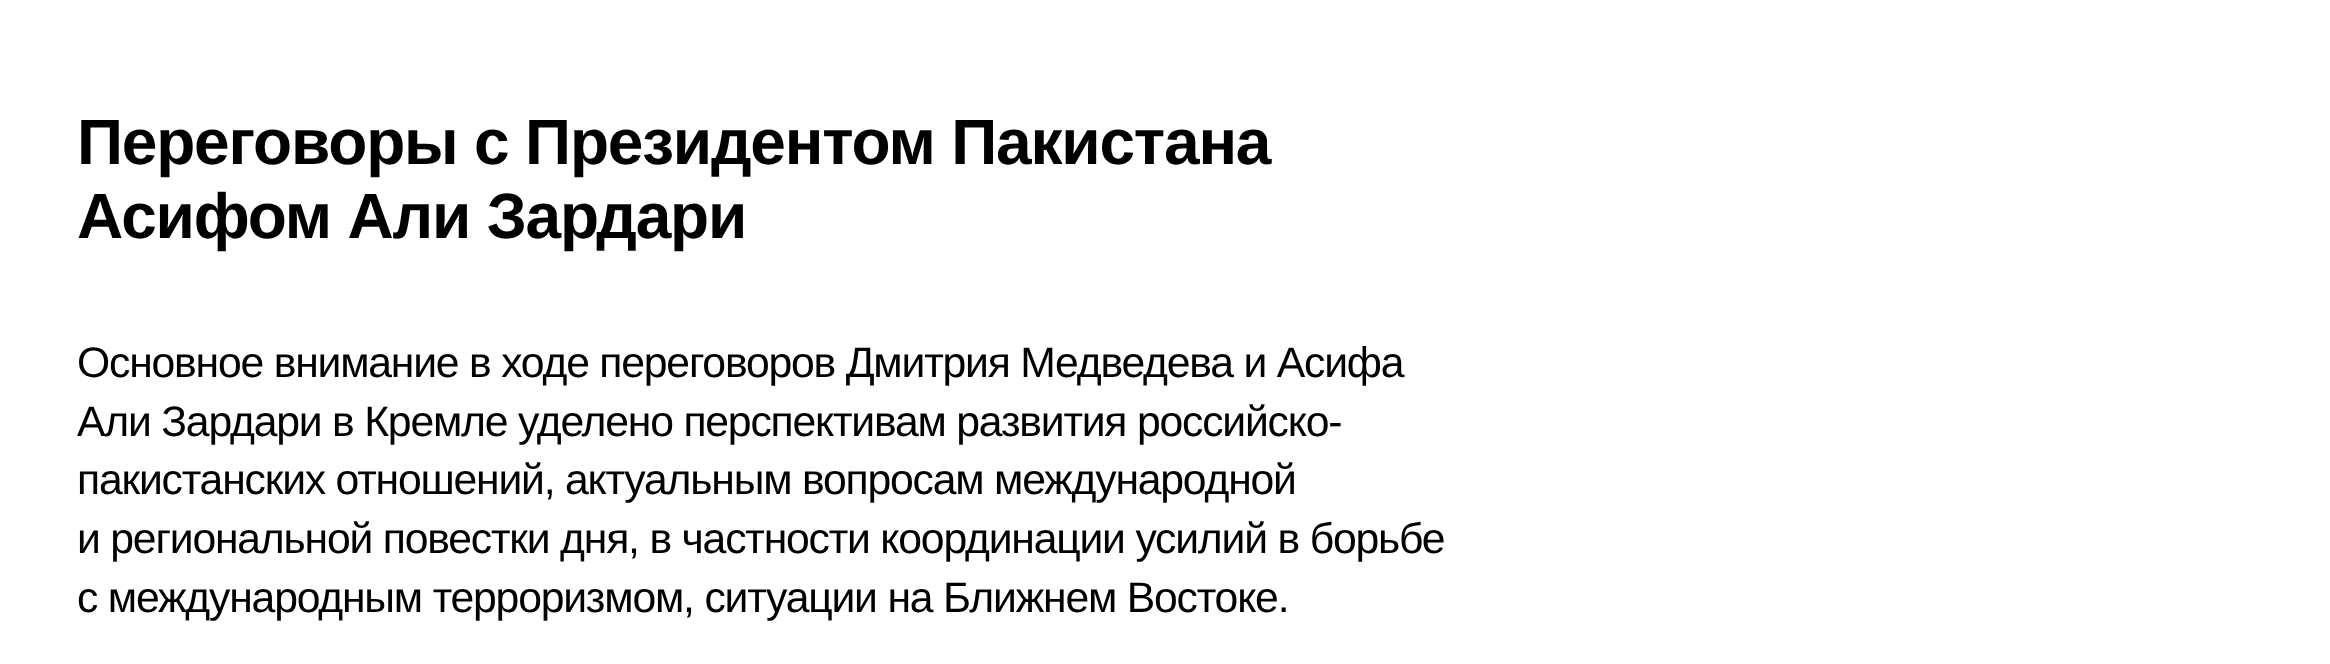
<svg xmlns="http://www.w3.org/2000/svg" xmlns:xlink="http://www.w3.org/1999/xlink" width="2330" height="664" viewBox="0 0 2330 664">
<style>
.cls-1{font:bold 64px Liberation Sans;letter-spacing:-1.2px;fill:#000000}
.cls-2{font:42.7px Liberation Sans;letter-spacing:-1.2px;fill:#000000}
</style>
<rect width="100%" height="100%" fill="#ffffff"/>
<text class="cls-1"><tspan x="77" y="164">Переговоры с Президентом Пакистана</tspan><tspan x="77" y="238">Асифом Али Зардари</tspan></text>
<text class="cls-2"><tspan x="77" y="377">Основное внимание в ходе переговоров Дмитрия Медведева и Асифа</tspan><tspan x="77" y="436">Али Зардари в Кремле уделено перспективам развития российско-</tspan><tspan x="77" y="494">пакистанских отношений, актуальным вопросам международной</tspan><tspan x="77" y="553">и региональной повестки дня, в частности координации усилий в борьбе</tspan><tspan x="77" y="612">с международным терроризмом, ситуации на Ближнем Востоке.</tspan></text>
</svg>
